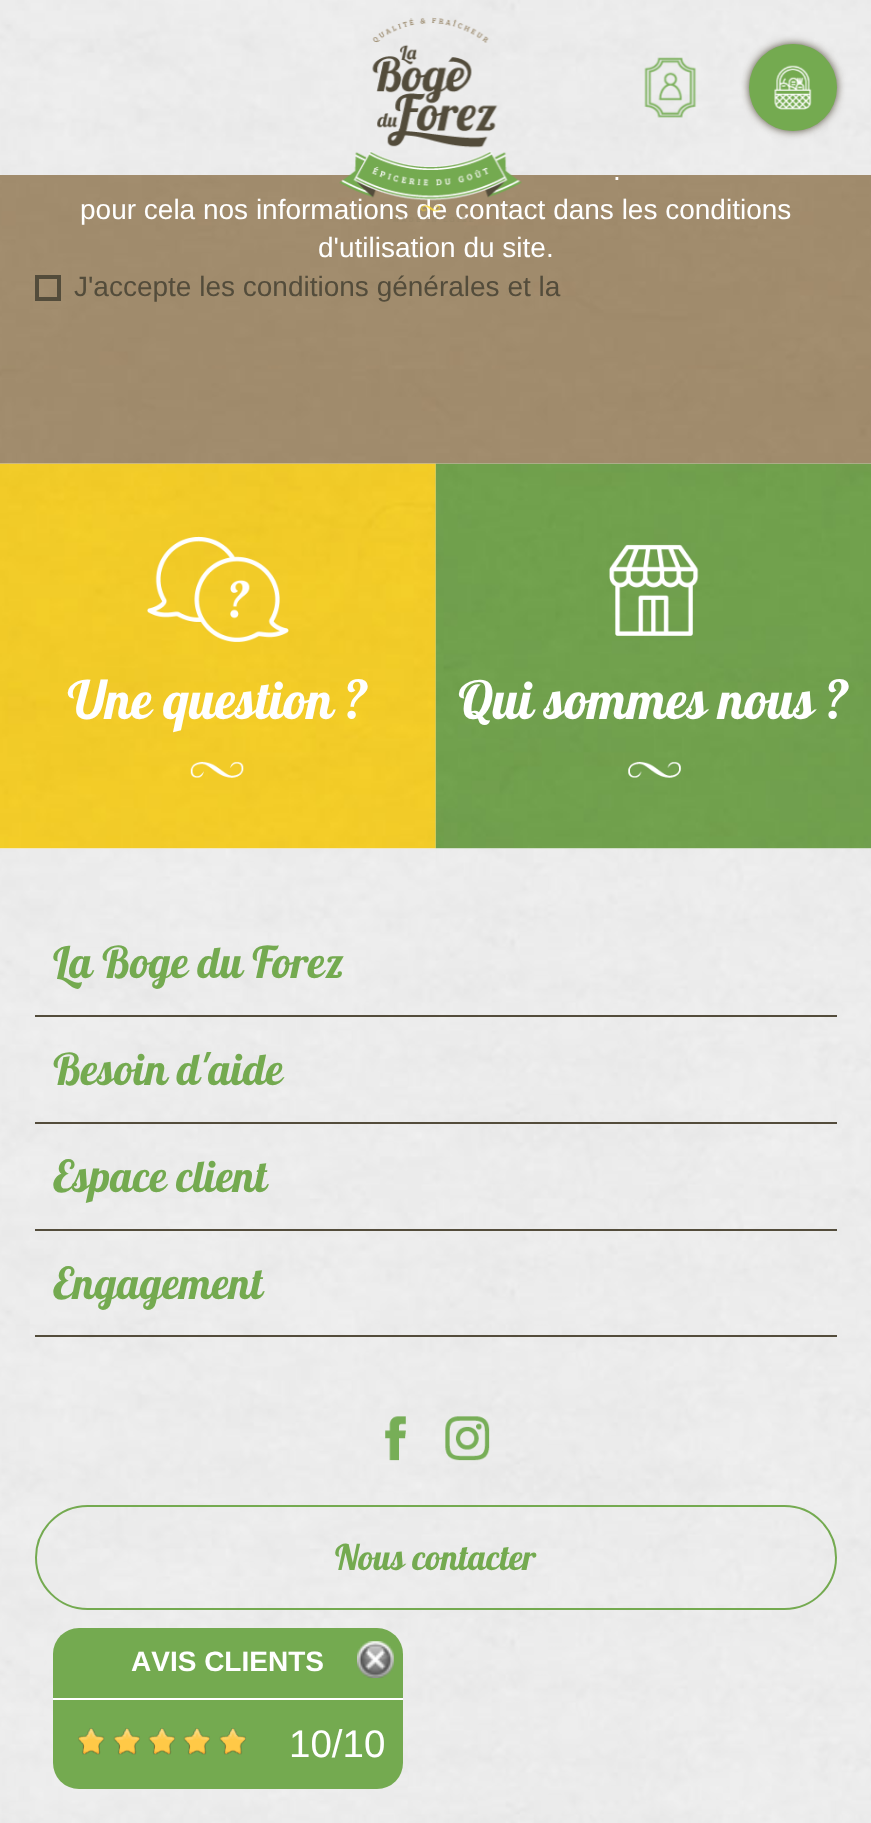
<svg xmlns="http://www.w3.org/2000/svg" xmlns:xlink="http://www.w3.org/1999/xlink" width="871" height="1823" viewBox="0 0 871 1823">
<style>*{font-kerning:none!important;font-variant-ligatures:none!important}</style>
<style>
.cls-1{font:28px Liberation Sans;fill:#ffffff}
.cls-2{font:28px Liberation Sans;fill:#534c3b}
.cls-3{font:52.5px Lobster;fill:#ffffff}
.cls-4{font:43.75px Lobster;fill:#74aa50}
.cls-5{font:35px Lobster;fill:#74aa50}
.cls-6{font:bold 28px Liberation Sans;fill:#ffffff}
.cls-7{font:38.5px Liberation Sans;fill:#ffffff}
</style>
<rect width="100%" height="100%" fill="#ffffff"/>
<image xlink:href="image0.png" x="0" y="0" width="871" height="175"/>
<image xlink:href="image2.png" x="644" y="57" width="53" height="61"/>
<rect fill="#534c3b" filter="blur(4.5px)" x="749" y="44" width="88" height="87" rx="43.5"/>
<rect fill="#74aa50" x="749" y="44" width="88" height="87" rx="43.5"/>
<image xlink:href="image3.png" x="774" y="65" width="38" height="45"/>
<image xlink:href="image5.png" x="0" y="463" width="436" height="386"/>
<image xlink:href="image8.png" x="435" y="463" width="436" height="386"/>
<image xlink:href="image4.png" x="0" y="175" width="871" height="289"/>
<rect fill="none" stroke="#534c3b" stroke-width="4" x="37" y="277" width="22" height="22"/>
<image xlink:href="image6.png" x="147" y="536" width="142" height="106"/>
<image xlink:href="image7.png" x="190" y="761" width="54" height="17"/>
<image xlink:href="image9.png" x="609" y="544" width="90" height="92"/>
<image xlink:href="image10.png" x="628" y="761" width="54" height="17"/>
<image xlink:href="image11.png" x="0" y="848" width="871" height="975"/>
<rect fill="#534c3b" x="35" y="1015" width="802" height="2"/>
<rect fill="#534c3b" x="35" y="1122" width="802" height="2"/>
<rect fill="#534c3b" x="35" y="1229" width="802" height="2"/>
<rect fill="#534c3b" x="35" y="1335" width="802" height="2"/>
<image xlink:href="image12.png" x="385" y="1416" width="21" height="45"/>
<image xlink:href="image13.png" x="445" y="1416" width="45" height="45"/>
<rect fill="none" stroke="#74aa50" stroke-width="2" x="36" y="1506" width="800" height="103" rx="51.5"/>
<rect fill="#74aa50" x="53" y="1628" width="350" height="161" rx="26"/>
<image xlink:href="image14.png" x="357" y="1641" width="37" height="37"/>
<rect fill="#ffffff" x="53" y="1698" width="350" height="2"/>
<image xlink:href="image15.png" x="78" y="1728" width="168" height="27"/>
<text class="cls-1" x="613" y="180">.</text>
<text class="cls-1" x="80" y="219">pour cela nos informations de contact dans les conditions</text>
<image xlink:href="image1.png" x="339" y="17" width="183" height="205"/>
<text class="cls-1" x="318" y="257">d'utilisation du site.</text>
<text class="cls-2" x="74" y="296">J'accepte les conditions générales et la</text>
<text class="cls-3" x="68" y="719">Une question ?</text>
<text class="cls-3" x="458" y="719">Qui sommes nous</text>
<text class="cls-3" x="826" y="719">?</text>
<text class="cls-4" x="53" y="978">La Boge du Forez</text>
<text class="cls-4" x="53" y="1085">Besoin d'aide</text>
<text class="cls-4" x="53" y="1192">Espace client</text>
<text class="cls-4" x="53" y="1299">Engagement</text>
<text class="cls-5" x="335" y="1570">Nous contacter</text>
<text class="cls-6" x="131" y="1671">AVIS CLIENTS</text>
<text class="cls-7" x="289" y="1757">10/10</text>
</svg>
